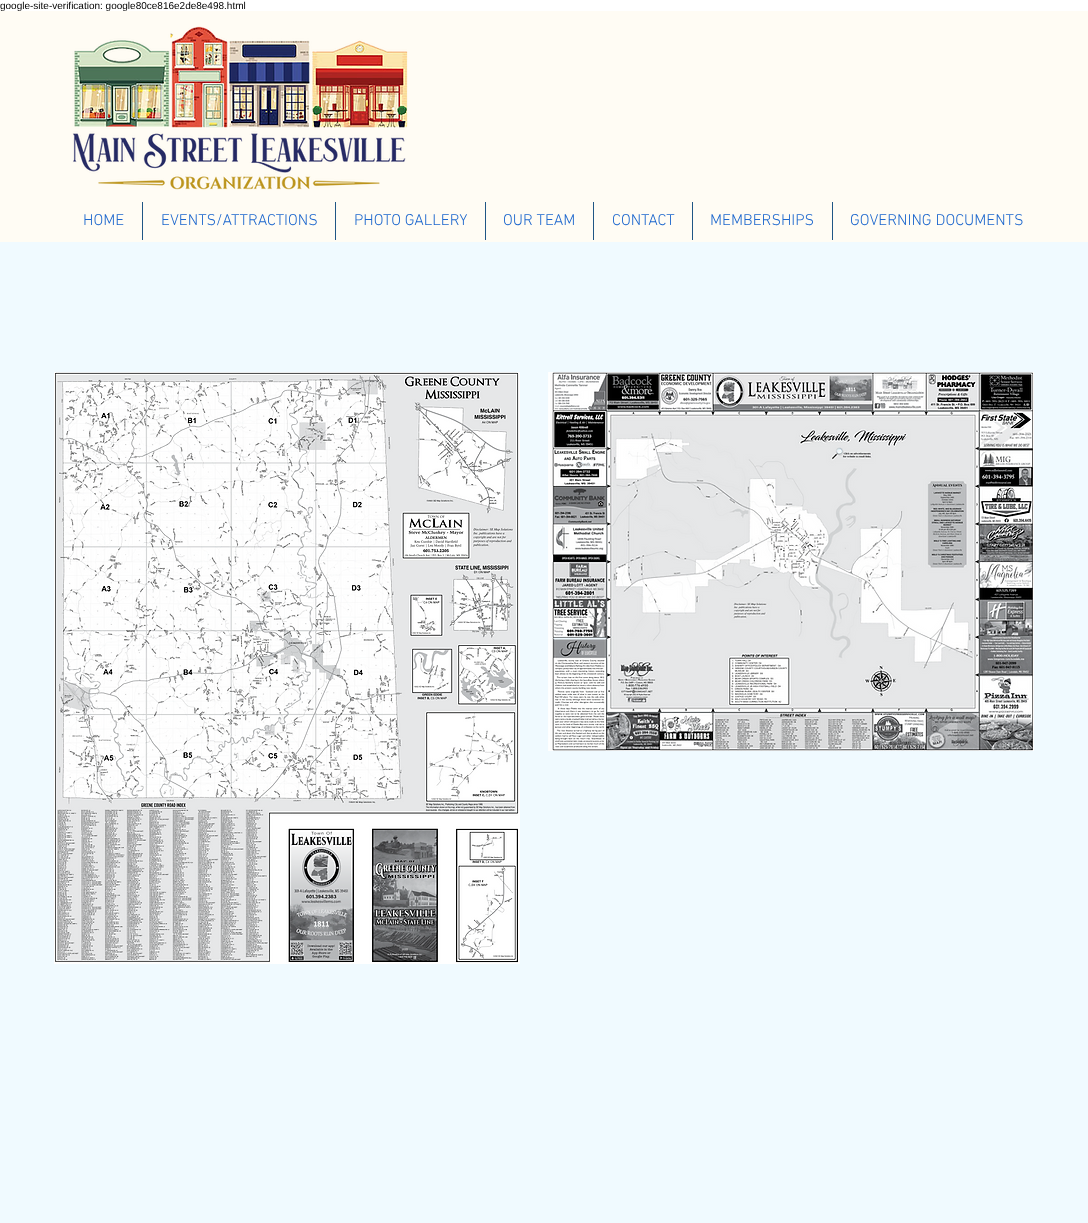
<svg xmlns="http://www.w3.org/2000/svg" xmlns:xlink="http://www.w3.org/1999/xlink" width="1088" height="1223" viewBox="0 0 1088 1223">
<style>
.cls-1{font:10px Liberation Sans;fill:#000000}
.cls-2{font:300 16px 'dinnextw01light';fill:#1d67cd}
</style>
<rect width="100%" height="100%" fill="#ffffff"/>
<rect fill="#f0faff" x="0" y="242" width="1088" height="981"/>
<image xlink:href="image1.png" x="54" y="372" width="466" height="592"/>
<image xlink:href="image2.png" x="548" y="372" width="486" height="379"/>
<text class="cls-1" x="0" y="9">google-site-verification: google80ce816e2de8e498.html</text>
<rect fill="#fffcf4" x="0" y="11" width="1088" height="231"/>
<image xlink:href="image0.png" x="72" y="26" width="336" height="164"/>
<text class="cls-2" x="83" y="225">HOME</text>
<rect fill="#205685" x="142" y="202" width="1" height="38"/>
<text class="cls-2" x="161" y="225">EVENTS/ATTRACTIONS</text>
<rect fill="#205685" x="335" y="202" width="1" height="38"/>
<text class="cls-2" x="354" y="225">PHOTO GALLERY</text>
<rect fill="#205685" x="485" y="202" width="1" height="38"/>
<text class="cls-2" x="503" y="225">OUR TEAM</text>
<rect fill="#205685" x="593" y="202" width="1" height="38"/>
<text class="cls-2" x="612" y="225">CONTACT</text>
<rect fill="#205685" x="692" y="202" width="1" height="38"/>
<text class="cls-2" x="710" y="225">MEMBERSHIPS</text>
<rect fill="#205685" x="832" y="202" width="1" height="38"/>
<text class="cls-2" x="850" y="225">GOVERNING DOCUMENTS</text>
</svg>
